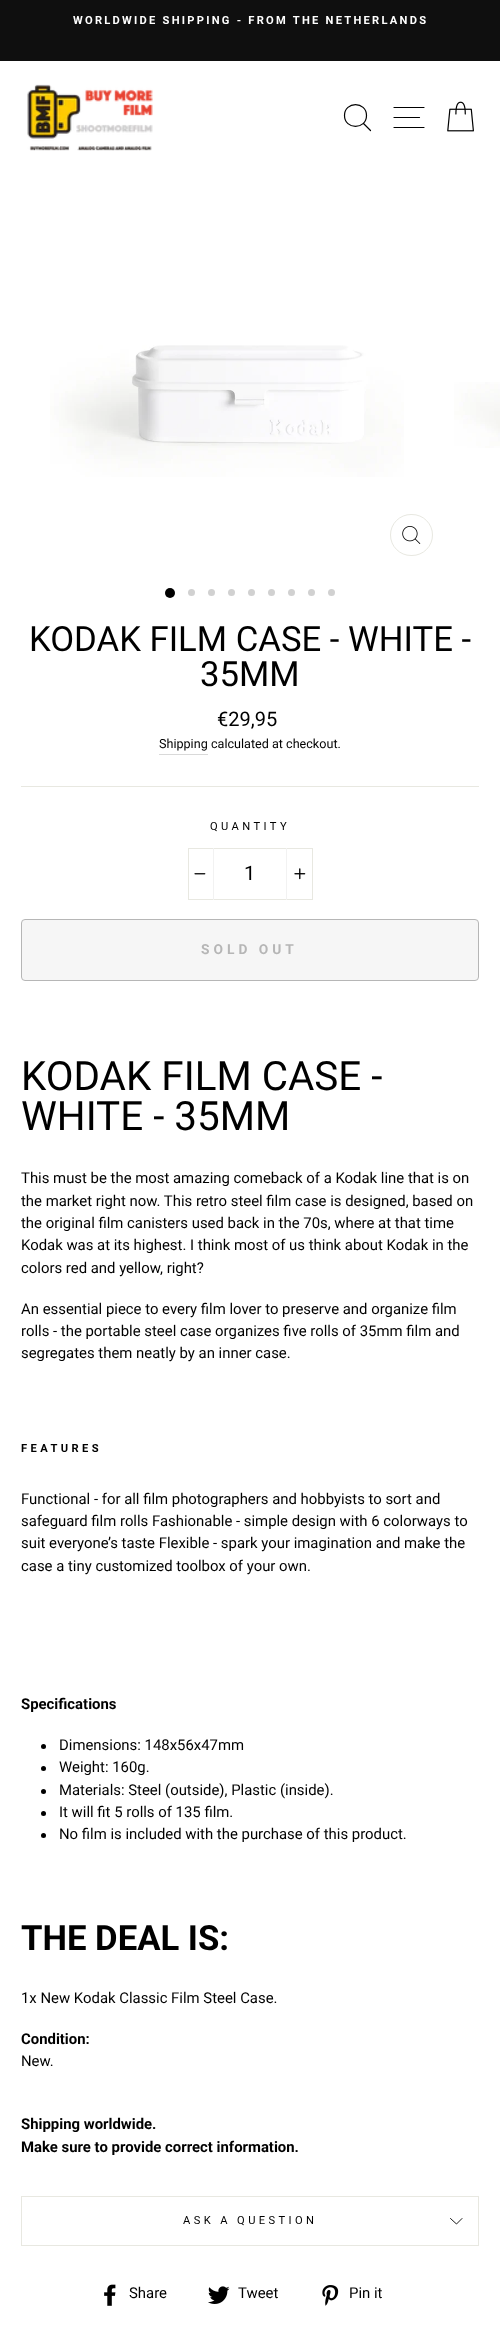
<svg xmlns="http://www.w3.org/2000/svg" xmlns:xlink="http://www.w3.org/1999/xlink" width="500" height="2330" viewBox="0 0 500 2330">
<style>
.cls-1{font:bold 11.15px Roboto;letter-spacing:2.25px;fill:#ffffff}
.cls-2{font:34.7px Roboto;fill:#000000}
.cls-3{font:20px Roboto;fill:#000000}
.cls-4{font:12.6px Roboto;fill:#000000}
.cls-5{font:11.15px Roboto;letter-spacing:3.4px;fill:#000000}
.cls-6{font:bold 13.75px Roboto;letter-spacing:4px;fill:#b6b6b6}
.cls-7{font:40.4px Roboto;fill:#000000}
.cls-8{font:14.9px Roboto;fill:#000000}
.cls-9{font:bold 11.15px Roboto;letter-spacing:3.4px;fill:#000000}
.cls-10{font:bold 14.9px Roboto;fill:#000000}
.cls-11{font:bold 34.7px Roboto;fill:#000000}
</style>
<rect width="100%" height="100%" fill="#ffffff"/>
<rect fill="#0f0f0f" x="0" y="0" width="500" height="61"/>
<rect fill="#000000" fill-opacity="0.2" filter="blur(0.5px)" x="0" y="61" width="500" height="113"/>
<rect fill="#ffffff" x="0" y="61" width="500" height="113"/>
<image xlink:href="image0.png" x="27" y="84" width="126" height="67"/>
<path fill="none" stroke="#000000" stroke-width="1.2" stroke-linecap="round" stroke-linejoin="round" d="M366.5 115.5C366.5 130 344.5 130 344.5 115.5C344.5 101 366.5 101 366.5 115.5ZM370.5 130.5L363.5 123.5"/>
<path fill="none" stroke="#000000" stroke-width="1.2" stroke-linecap="round" stroke-linejoin="round" d="M394 107.5H424M394 117.5H419.5M394 127.5H424"/>
<image xlink:href="image1.png" x="447" y="101" width="27" height="31"/>
<rect fill="#ffffff" x="0" y="174" width="45" height="1"/>
<rect fill="#ffffff" x="50" y="174" width="395" height="1"/>
<image xlink:href="image2.png" x="50" y="345" width="354" height="132"/>
<rect fill="none" stroke="#e8e8e1" x="390.5" y="514.5" width="42" height="41" rx="20.5"/>
<image xlink:href="image3.png" x="402" y="526" width="19" height="18"/>
<rect fill="#ffffff" x="450" y="174" width="50" height="1"/>
<image xlink:href="image4.png" x="454" y="382" width="46" height="66"/>
<circle fill="#000000" cx="170" cy="593" r="5"/>
<circle fill="#d1d1d1" cx="191.5" cy="592.5" r="3.5"/>
<circle fill="#d1d1d1" cx="211.5" cy="592.5" r="3.5"/>
<circle fill="#d1d1d1" cx="231.5" cy="592.5" r="3.5"/>
<circle fill="#d1d1d1" cx="251.5" cy="592.5" r="3.5"/>
<circle fill="#d1d1d1" cx="271.5" cy="592.5" r="3.5"/>
<circle fill="#d1d1d1" cx="291.5" cy="592.5" r="3.5"/>
<circle fill="#d1d1d1" cx="311.5" cy="592.5" r="3.5"/>
<circle fill="#d1d1d1" cx="331.5" cy="592.5" r="3.5"/>
<rect fill="#d9d9d9" x="159" y="754" width="49" height="1"/>
<rect fill="#e8e8e1" x="21" y="786" width="458" height="1"/>
<rect fill="none" stroke="#e8e8e1" x="188.5" y="848.5" width="124" height="51"/>
<rect fill="#f2f2f2" x="213" y="848" width="1" height="52"/>
<image xlink:href="image5.png" x="194" y="873" width="12" height="2"/>
<rect fill="#f2f2f2" x="286" y="848" width="1" height="52"/>
<image xlink:href="image6.png" x="294" y="868" width="12" height="12"/>
<rect fill="#f6f6f6" stroke="#b6b6b6" x="21.5" y="919.5" width="457" height="61" rx="3.5"/>
<circle fill="#000000" cx="43.5" cy="1746.5" r="2.5"/>
<circle fill="#000000" cx="43.5" cy="1768.5" r="2.5"/>
<circle fill="#000000" cx="43.5" cy="1791.5" r="2.5"/>
<circle fill="#000000" cx="43.5" cy="1813.5" r="2.5"/>
<circle fill="#000000" cx="43.5" cy="1835.5" r="2.5"/>
<rect fill="#e8e8e1" x="21" y="2245" width="458" height="1"/>
<rect fill="#e8e8e1" x="21" y="2196" width="458" height="1"/>
<rect fill="#e8e8e1" x="478" y="2196" width="1" height="49"/>
<rect fill="#e8e8e1" x="21" y="2196" width="1" height="49"/>
<path fill="none" stroke="#000000" stroke-width="0.9" stroke-linecap="round" stroke-linejoin="round" d="M450.5 2218.5L456.5 2224L462 2218.5"/>
<image xlink:href="image7.png" x="104" y="2284" width="12" height="22"/>
<image xlink:href="image8.png" x="208" y="2286" width="22" height="18"/>
<image xlink:href="image9.png" x="322" y="2285" width="17" height="21"/>
<text class="cls-1" x="73" y="24">WORLDWIDE SHIPPING - FROM THE NETHERLANDS</text>
<text class="cls-2" x="29" y="651">KODAK FILM CASE - WHITE -</text>
<text class="cls-2" x="200" y="686">35MM</text>
<text class="cls-3" x="217" y="726">€29,95</text>
<text class="cls-4" x="159" y="748">Shipping</text>
<text class="cls-4" x="211" y="748">calculated at checkout.</text>
<text class="cls-5" x="210" y="830">QUANTITY</text>
<text class="cls-3" x="244" y="880">1</text>
<text class="cls-6" x="201" y="954">SOLD OUT</text>
<text class="cls-7"><tspan x="21" y="1090">KODAK FILM CASE -</tspan><tspan x="21" y="1130">WHITE - 35MM</tspan></text>
<text class="cls-8"><tspan x="21" y="1183">This must be the most amazing comeback of a Kodak line that is on</tspan><tspan x="21" y="1206">the market right now. This retro steel film case is designed, based on</tspan><tspan x="21" y="1228">the original film canisters used back in the 70s, where at that time</tspan><tspan x="21" y="1250">Kodak was at its highest. I think most of us think about Kodak in the</tspan><tspan x="21" y="1273">colors red and yellow, right?</tspan></text>
<text class="cls-8"><tspan x="21" y="1314">An essential piece to every film lover to preserve and organize film</tspan><tspan x="21" y="1336">rolls - the portable steel case organizes five rolls of 35mm film and</tspan><tspan x="21" y="1358">segregates them neatly by an inner case.</tspan></text>
<text class="cls-9" x="21" y="1452">FEATURES</text>
<text class="cls-8"><tspan x="21" y="1504">Functional - for all film photographers and hobbyists to sort and</tspan><tspan x="21" y="1526">safeguard film rolls Fashionable - simple design with 6 colorways to</tspan><tspan x="21" y="1548">suit everyone’s taste Flexible - spark your imagination and make the</tspan><tspan x="21" y="1571">case a tiny customized toolbox of your own.</tspan></text>
<text class="cls-10" x="21" y="1709">Specifications</text>
<text class="cls-8"><tspan x="59" y="1750">Dimensions: 148x56x47mm</tspan><tspan x="59" y="1772">Weight: 160g.</tspan><tspan x="59" y="1795">Materials: Steel (outside), Plastic (inside).</tspan><tspan x="59" y="1817">It will fit 5 rolls of 135 film.</tspan><tspan x="59" y="1839">No film is included with the purchase of this product.</tspan></text>
<text class="cls-11" x="21" y="1950">THE DEAL IS:</text>
<text class="cls-8" x="21" y="2003">1x New Kodak Classic Film Steel Case.</text>
<text class="cls-10" x="21" y="2044">Condition:</text>
<text class="cls-8" x="21" y="2066">New.</text>
<text class="cls-10"><tspan x="21" y="2129">Shipping worldwide.</tspan><tspan x="21" y="2152">Make sure to provide correct information.</tspan></text>
<text class="cls-5" x="183" y="2224">ASK A QUESTION</text>
<text class="cls-8" x="129" y="2298">Share</text>
<text class="cls-8" x="238" y="2298">Tweet</text>
<text class="cls-8" x="349" y="2298">Pin it</text>
</svg>
